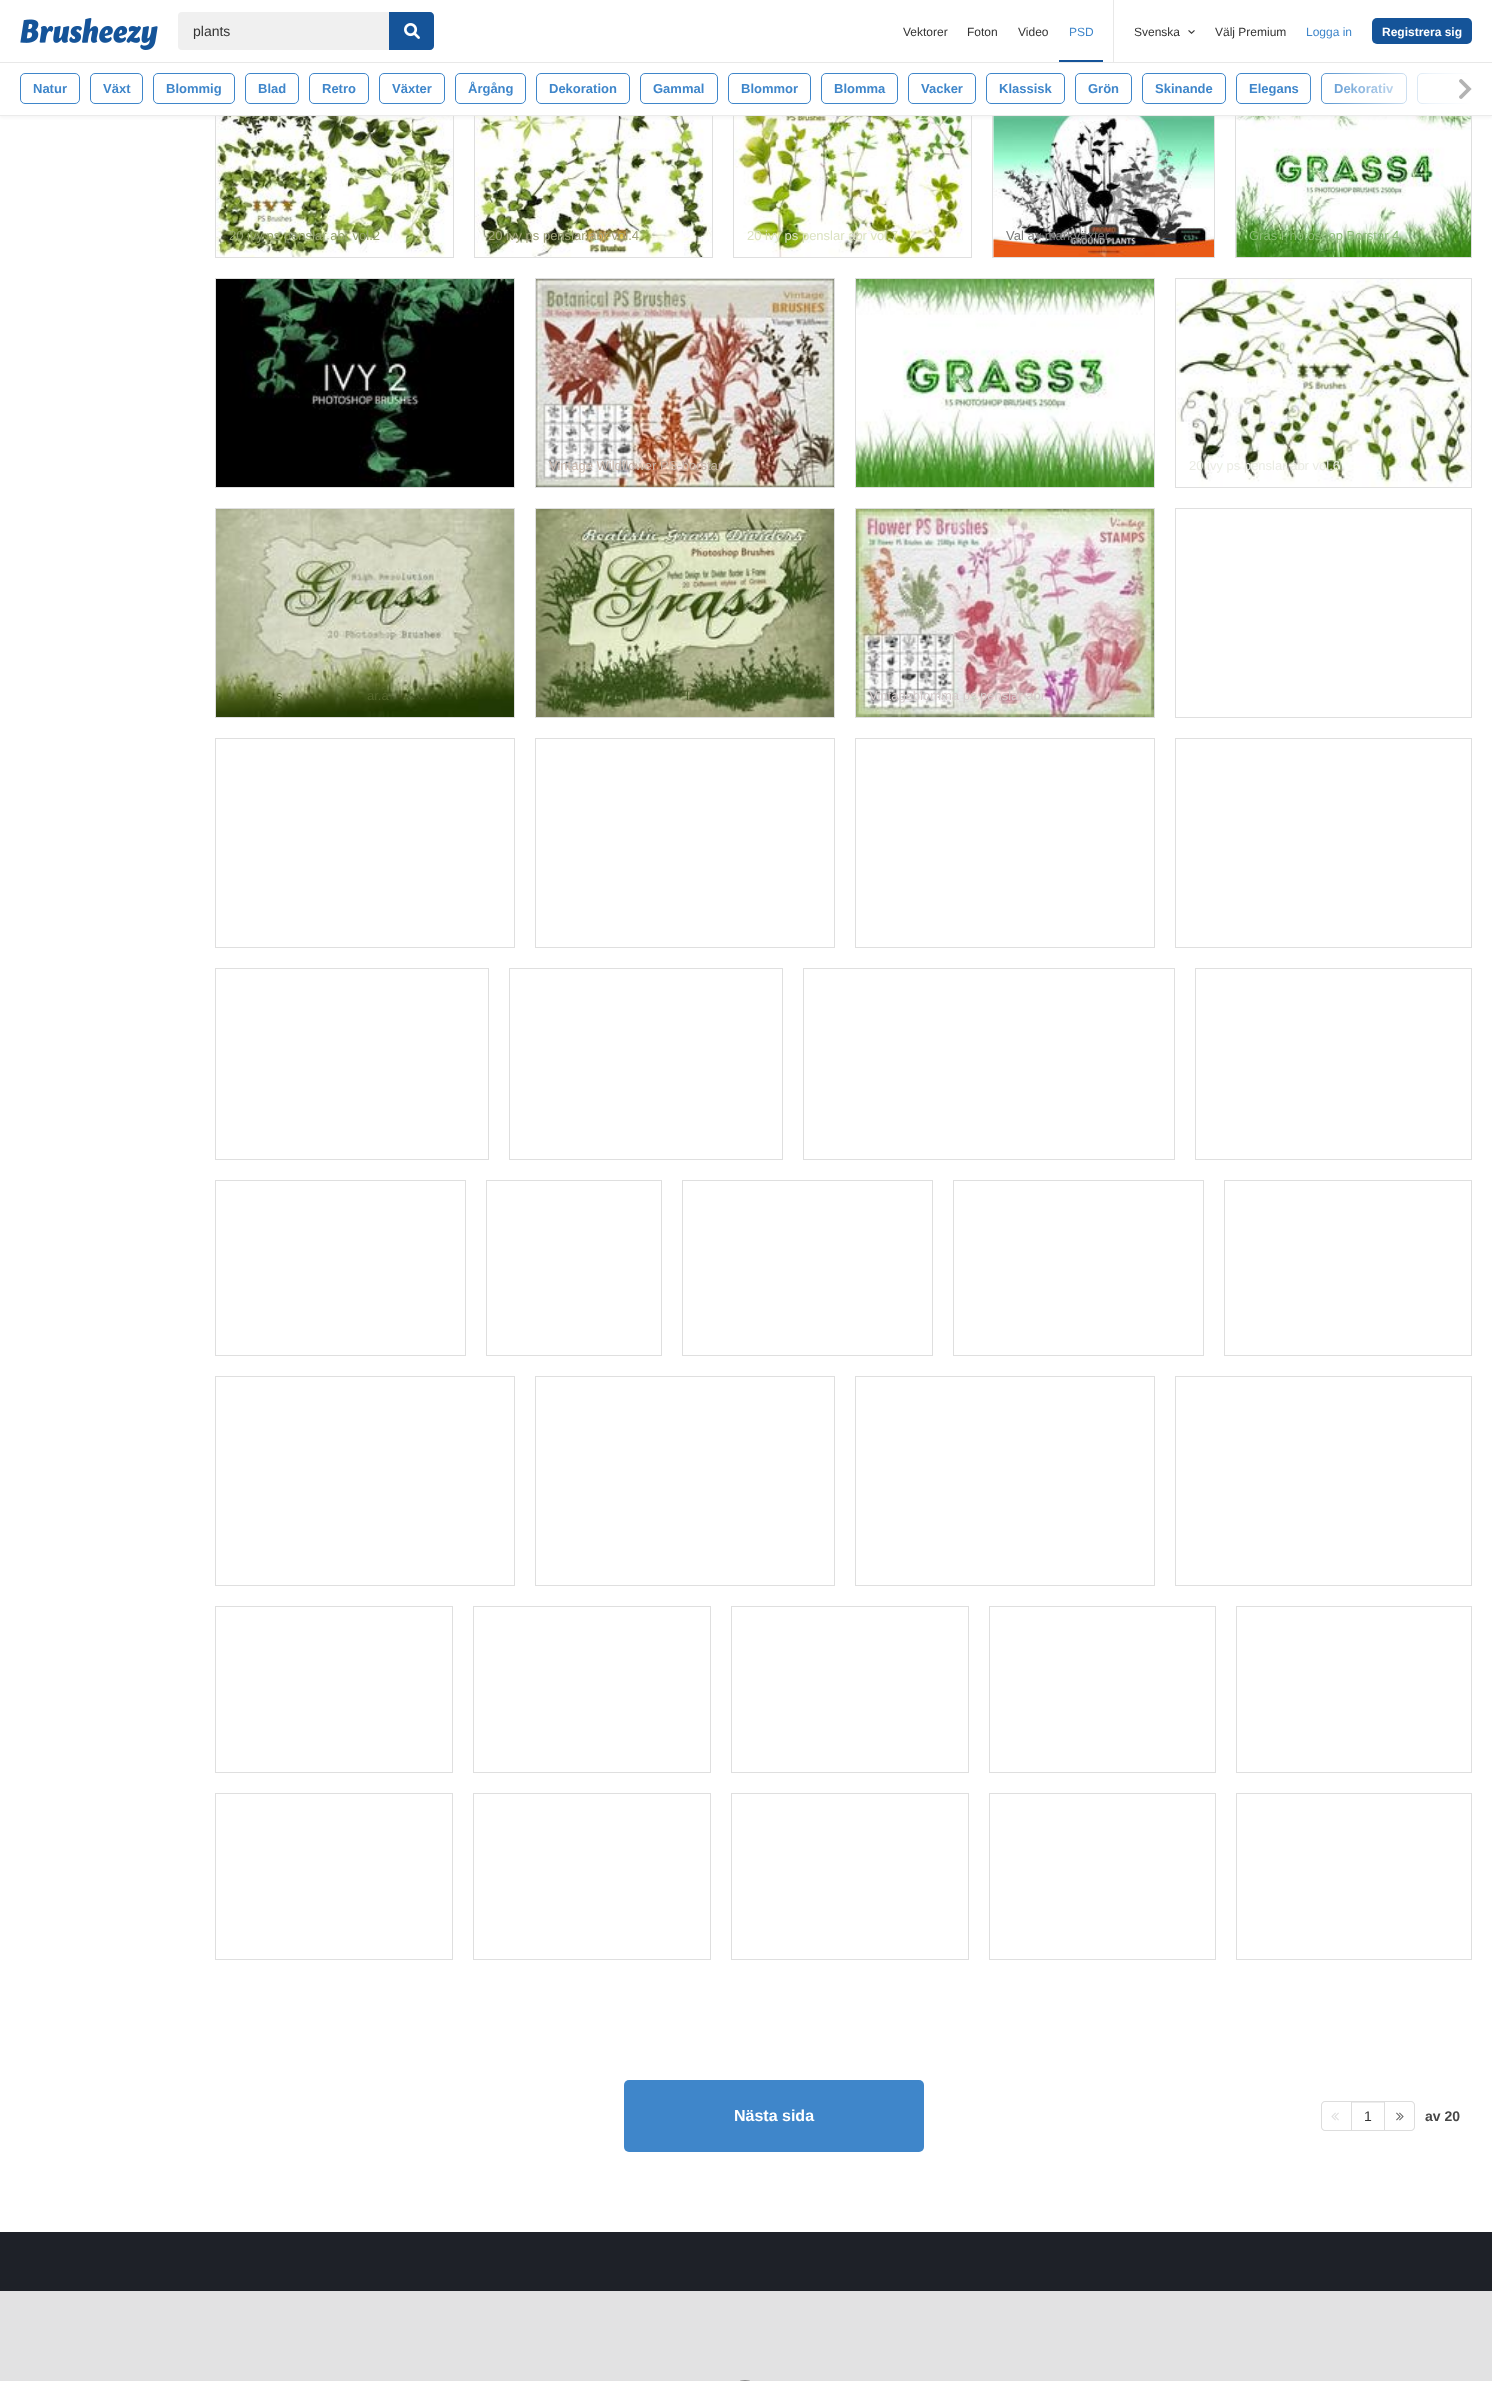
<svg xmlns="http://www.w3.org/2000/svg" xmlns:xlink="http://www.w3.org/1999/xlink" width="1492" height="2381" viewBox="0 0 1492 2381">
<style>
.cls-1{font:14px Liberation Sans;fill:#333333}
.cls-2{font:12px Liberation Sans;fill:#333333}
.cls-3{font:12px Liberation Sans;fill:#3f86ca}
.cls-4{font:bold 12px Liberation Sans;fill:#ffffff}
.cls-5{font:bold 13px Liberation Sans;fill:#3f86ca}
.cls-6{font:13px Liberation Sans;fill:#96a56f}
.cls-7{font:13px Liberation Sans;fill:#a0a279}
.cls-8{font:13px Liberation Sans;fill:#dce3c2}
.cls-9{font:13px Liberation Sans;fill:#7b7b7b}
.cls-10{font:13px Liberation Sans;fill:#8bbb76}
.cls-11{font:13px Liberation Sans;fill:#c8b6aa}
.cls-12{font:13px Liberation Sans;fill:#eaece4}
.cls-13{font:13px Liberation Sans;fill:#54652b}
.cls-14{font:13px Liberation Sans;fill:#4c5f2c}
.cls-15{font:13px Liberation Sans;fill:#d4caca}
.cls-16{font:bold 16px Liberation Sans;fill:#ffffff}
.cls-17{font:bold 14px Liberation Sans;fill:#474747}
</style>
<defs>
<clipPath id="clip1"><rect x="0" y="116" width="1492" height="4"/></clipPath>
<clipPath id="clip2"><rect x="20" y="73" width="1452" height="44"/></clipPath>
<linearGradient id="g1" gradientUnits="userSpaceOnUse" x1="1302" y1="89" x2="1472" y2="89"><stop offset="0" stop-color="#ffffff" stop-opacity="0"/><stop offset="0.75" stop-color="#ffffff" stop-opacity="0.9"/><stop offset="1" stop-color="#ffffff"/></linearGradient>
</defs>
<rect width="100%" height="100%" fill="#ffffff"/>
<rect fill="none" stroke="#dfdfdf" x="215.5" y="91.5" width="238" height="166"/>
<rect fill="none" stroke="#dfdfdf" x="474.5" y="91.5" width="238" height="166"/>
<rect fill="none" stroke="#dfdfdf" x="733.5" y="91.5" width="238" height="166"/>
<rect fill="none" stroke="#dfdfdf" x="992.5" y="91.5" width="222" height="166"/>
<rect fill="none" stroke="#dfdfdf" x="1235.5" y="91.5" width="236" height="166"/>
<rect fill="#ffffff" x="215" y="91" width="1257" height="24"/>
<image xlink:href="image0.png" x="20" y="18" width="138" height="32"/>
<rect fill="#f0f0f0" x="178" y="12" width="256" height="38" rx="4"/>
<path fill="#155499" d="M389 12H430C432 12 434 14 434 16V46C434 48 432 50 430 50H389Z"/>
<image xlink:href="image1.png" x="404" y="23" width="16" height="16"/>
<image xlink:href="image4.png" x="216" y="116" width="237" height="141"/>
<image xlink:href="image5.png" x="475" y="116" width="237" height="141"/>
<image xlink:href="image6.png" x="734" y="116" width="237" height="141"/>
<image xlink:href="image7.png" x="993" y="116" width="221" height="141"/>
<image xlink:href="image8.png" x="1236" y="116" width="235" height="141"/>
<g clip-path="url(#clip1)">
<rect fill="#cccccc" fill-opacity="0.2" filter="blur(1.5px)" x="0" y="64" width="1492" height="54"/>
</g>
<rect fill="#155499" x="1059" y="60" width="44" height="2"/>
<rect fill="#e8e8e8" x="1113" y="0" width="1" height="62"/>
<image xlink:href="image2.png" x="1188" y="30" width="7" height="4"/>
<rect fill="#155499" x="1372" y="18" width="100" height="26" rx="5"/>
<rect fill="#e8e8e8" x="0" y="62" width="1492" height="1"/>
<rect fill="#ebebeb" x="0" y="115" width="1492" height="1"/>
<rect fill="none" stroke="#3f86ca" x="20.5" y="73.5" width="59" height="30" rx="4.5"/>
<rect fill="none" stroke="#3f86ca" x="90.5" y="73.5" width="52" height="30" rx="4.5"/>
<rect fill="none" stroke="#3f86ca" x="153.5" y="73.5" width="81" height="30" rx="4.5"/>
<rect fill="none" stroke="#3f86ca" x="245.5" y="73.5" width="53" height="30" rx="4.5"/>
<rect fill="none" stroke="#3f86ca" x="309.5" y="73.5" width="59" height="30" rx="4.5"/>
<rect fill="none" stroke="#3f86ca" x="379.5" y="73.5" width="65" height="30" rx="4.5"/>
<rect fill="none" stroke="#3f86ca" x="455.5" y="73.5" width="70" height="30" rx="4.5"/>
<rect fill="none" stroke="#3f86ca" x="536.5" y="73.5" width="93" height="30" rx="4.5"/>
<rect fill="none" stroke="#3f86ca" x="640.5" y="73.5" width="77" height="30" rx="4.5"/>
<rect fill="none" stroke="#3f86ca" x="728.5" y="73.5" width="82" height="30" rx="4.5"/>
<rect fill="none" stroke="#3f86ca" x="821.5" y="73.5" width="76" height="30" rx="4.5"/>
<rect fill="none" stroke="#3f86ca" x="908.5" y="73.5" width="67" height="30" rx="4.5"/>
<rect fill="none" stroke="#3f86ca" x="986.5" y="73.5" width="78" height="30" rx="4.5"/>
<rect fill="none" stroke="#3f86ca" x="1075.5" y="73.5" width="56" height="30" rx="4.5"/>
<rect fill="none" stroke="#3f86ca" x="1142.5" y="73.5" width="83" height="30" rx="4.5"/>
<rect fill="none" stroke="#3f86ca" x="1236.5" y="73.5" width="74" height="30" rx="4.5"/>
<rect fill="none" stroke="#3f86ca" x="1321.5" y="73.5" width="85" height="30" rx="4.5"/>
<g clip-path="url(#clip2)">
<rect fill="none" stroke="#3f86ca" x="1417.5" y="73.5" width="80" height="30" rx="4.5"/>
</g>
<rect fill="none" stroke="#dfdfdf" x="215.5" y="278.5" width="299" height="209"/>
<image xlink:href="image9.png" x="216" y="279" width="298" height="208"/>
<rect fill="none" stroke="#dfdfdf" x="535.5" y="278.5" width="299" height="209"/>
<image xlink:href="image10.png" x="536" y="279" width="298" height="208"/>
<rect fill="none" stroke="#dfdfdf" x="855.5" y="278.5" width="299" height="209"/>
<image xlink:href="image11.png" x="856" y="279" width="298" height="208"/>
<rect fill="none" stroke="#dfdfdf" x="1175.5" y="278.5" width="296" height="209"/>
<image xlink:href="image12.png" x="1176" y="279" width="295" height="208"/>
<rect fill="none" stroke="#dfdfdf" x="215.5" y="508.5" width="299" height="209"/>
<image xlink:href="image13.png" x="216" y="509" width="298" height="208"/>
<rect fill="none" stroke="#dfdfdf" x="535.5" y="508.5" width="299" height="209"/>
<image xlink:href="image14.png" x="536" y="509" width="298" height="208"/>
<rect fill="none" stroke="#dfdfdf" x="855.5" y="508.5" width="299" height="209"/>
<image xlink:href="image15.png" x="856" y="509" width="298" height="208"/>
<rect fill="none" stroke="#dfdfdf" x="1175.5" y="508.5" width="296" height="209"/>
<rect fill="none" stroke="#dfdfdf" x="215.5" y="738.5" width="299" height="209"/>
<rect fill="none" stroke="#dfdfdf" x="535.5" y="738.5" width="299" height="209"/>
<rect fill="none" stroke="#dfdfdf" x="855.5" y="738.5" width="299" height="209"/>
<rect fill="none" stroke="#dfdfdf" x="1175.5" y="738.5" width="296" height="209"/>
<rect fill="none" stroke="#dfdfdf" x="215.5" y="968.5" width="273" height="191"/>
<rect fill="none" stroke="#dfdfdf" x="509.5" y="968.5" width="273" height="191"/>
<rect fill="none" stroke="#dfdfdf" x="803.5" y="968.5" width="371" height="191"/>
<rect fill="none" stroke="#dfdfdf" x="1195.5" y="968.5" width="276" height="191"/>
<rect fill="none" stroke="#dfdfdf" x="215.5" y="1180.5" width="250" height="175"/>
<rect fill="none" stroke="#dfdfdf" x="486.5" y="1180.5" width="175" height="175"/>
<rect fill="none" stroke="#dfdfdf" x="682.5" y="1180.5" width="250" height="175"/>
<rect fill="none" stroke="#dfdfdf" x="953.5" y="1180.5" width="250" height="175"/>
<rect fill="none" stroke="#dfdfdf" x="1224.5" y="1180.5" width="247" height="175"/>
<rect fill="none" stroke="#dfdfdf" x="215.5" y="1376.5" width="299" height="209"/>
<rect fill="none" stroke="#dfdfdf" x="535.5" y="1376.5" width="299" height="209"/>
<rect fill="none" stroke="#dfdfdf" x="855.5" y="1376.5" width="299" height="209"/>
<rect fill="none" stroke="#dfdfdf" x="1175.5" y="1376.5" width="296" height="209"/>
<rect fill="none" stroke="#dfdfdf" x="215.5" y="1606.5" width="237" height="166"/>
<rect fill="none" stroke="#dfdfdf" x="473.5" y="1606.5" width="237" height="166"/>
<rect fill="none" stroke="#dfdfdf" x="731.5" y="1606.5" width="237" height="166"/>
<rect fill="none" stroke="#dfdfdf" x="989.5" y="1606.5" width="226" height="166"/>
<rect fill="none" stroke="#dfdfdf" x="1236.5" y="1606.5" width="235" height="166"/>
<rect fill="none" stroke="#dfdfdf" x="215.5" y="1793.5" width="237" height="166"/>
<rect fill="none" stroke="#dfdfdf" x="473.5" y="1793.5" width="237" height="166"/>
<rect fill="none" stroke="#dfdfdf" x="731.5" y="1793.5" width="237" height="166"/>
<rect fill="none" stroke="#dfdfdf" x="989.5" y="1793.5" width="226" height="166"/>
<rect fill="none" stroke="#dfdfdf" x="1236.5" y="1793.5" width="235" height="166"/>
<rect fill="#3f86ca" x="624" y="2080" width="300" height="72" rx="5"/>
<path fill="#dddddd" fill-rule="evenodd" d="M1325 2101H1351V2131H1325C1323 2131 1321 2129 1321 2127V2105C1321 2103 1323 2101 1325 2101ZM1325 2102H1351V2130H1325C1323.5 2130 1322 2128.5 1322 2127V2105C1322 2103.5 1323.5 2102 1325 2102Z"/>
<image xlink:href="image16.png" x="1331" y="2112" width="8" height="9"/>
<rect fill="#ececec" x="1352" y="2102" width="32" height="1"/>
<rect fill="none" stroke="#dddddd" x="1351.5" y="2101.5" width="33" height="29"/>
<path fill="#dddddd" fill-rule="evenodd" d="M1385 2101H1411C1413 2101 1415 2103 1415 2105V2127C1415 2129 1413 2131 1411 2131H1385ZM1385 2102H1411C1412.5 2102 1414 2103.5 1414 2105V2127C1414 2128.5 1412.5 2130 1411 2130H1385Z"/>
<image xlink:href="image17.png" x="1396" y="2112" width="8" height="9"/>
<rect fill="#1e2128" x="0" y="2232" width="1492" height="149"/>
<rect fill="#f7f7f7" fill-opacity="0.9" x="0" y="2291" width="1492" height="90"/>
<rect fill="none" stroke="#f2f2f2" x="734.5" y="2380.5" width="21" height="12" rx="10.5"/>
<rect fill="none" stroke="#888888" x="734.5" y="2380.5" width="21" height="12" rx="10.5"/>
<text class="cls-1" x="193" y="36">plants</text>
<text class="cls-2" x="903" y="36">Vektorer</text>
<text class="cls-2" x="967" y="36">Foton</text>
<text class="cls-2" x="1018" y="36">Video</text>
<text class="cls-3" x="1069" y="36">PSD</text>
<text class="cls-2" x="1134" y="36">Svenska</text>
<text class="cls-2" x="1215" y="36">Välj Premium</text>
<text class="cls-3" x="1306" y="36">Logga in</text>
<text class="cls-4" x="1382" y="36">Registrera sig</text>
<text class="cls-5" x="33" y="93">Natur</text>
<text class="cls-5" x="103" y="93">Växt</text>
<text class="cls-5" x="166" y="93">Blommig</text>
<text class="cls-5" x="258" y="93">Blad</text>
<text class="cls-5" x="322" y="93">Retro</text>
<text class="cls-5" x="392" y="93">Växter</text>
<text class="cls-5" x="468" y="93">Årgång</text>
<text class="cls-5" x="549" y="93">Dekoration</text>
<text class="cls-5" x="653" y="93">Gammal</text>
<text class="cls-5" x="741" y="93">Blommor</text>
<text class="cls-5" x="834" y="93">Blomma</text>
<text class="cls-5" x="921" y="93">Vacker</text>
<text class="cls-5" x="999" y="93">Klassisk</text>
<text class="cls-5" x="1088" y="93">Grön</text>
<text class="cls-5" x="1155" y="93">Skinande</text>
<text class="cls-5" x="1249" y="93">Elegans</text>
<text class="cls-5" x="1334" y="93">Dekorativ</text>
<rect fill="url(#g1)" x="1305" y="73" width="167" height="31"/>
<image xlink:href="image3.png" x="1459" y="79" width="13" height="20"/>
<text class="cls-6" x="229" y="240">20 ivy ps penslar abr vol.2</text>
<text class="cls-7" x="488" y="240">20 ivy ps penslar abr vol.4</text>
<text class="cls-8" x="747" y="240">20 ivy ps penslar abr vol.7</text>
<text class="cls-9" x="1006" y="240">Val av markväxter</text>
<text class="cls-10" x="1249" y="240">Gräs Photoshop Borstar 4</text>
<text class="cls-11" x="549" y="470">Vintage Wildflower PS-borstar</text>
<text class="cls-12" x="1189" y="470">20 ivy ps penslar abr vol.6</text>
<text class="cls-13" x="276" y="700">s</text>
<text class="cls-13" x="367" y="700">ar.a</text>
<text class="cls-13" x="420" y="700">.</text>
<text class="cls-14" x="686" y="700">l</text>
<text class="cls-14" x="700" y="700">.</text>
<text class="cls-15" x="869" y="700">Vintageblomma ps penslar abr.</text>
<text class="cls-16" x="734" y="2121">Nästa sida</text>
<text class="cls-1" x="1364" y="2121">1</text>
<text class="cls-17" x="1425" y="2121">av 20</text>
</svg>
